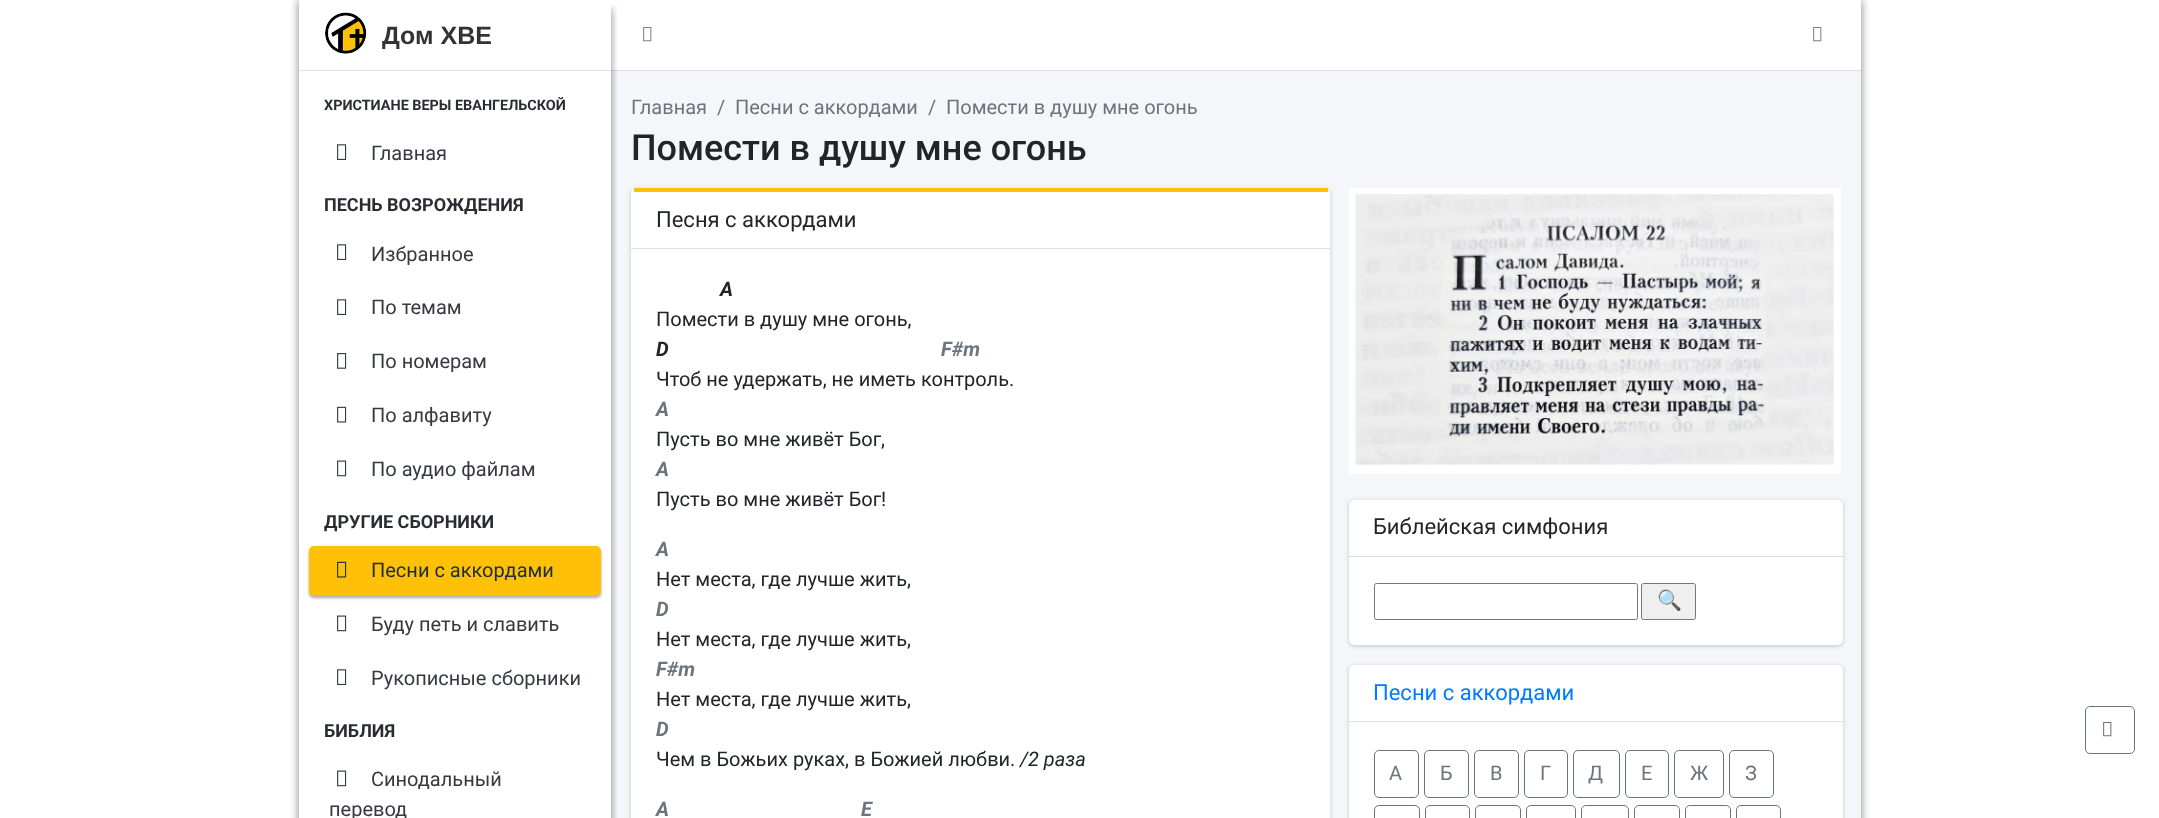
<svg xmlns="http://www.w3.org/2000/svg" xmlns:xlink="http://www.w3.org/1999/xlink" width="2159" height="818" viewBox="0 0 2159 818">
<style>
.cls-1{font:bold 25px Arimo;fill:#333333}
.cls-2{font:bold 14.4px Roboto;fill:#292d32}
.cls-3{font:20px Roboto;fill:#343a40}
.cls-4{font:bold 18px Roboto;fill:#292d32}
.cls-5{font:20px Roboto;fill:#1f2d3d}
.cls-6{font:20px Roboto;fill:#6c757d}
.cls-7{font:500 36px Roboto;fill:#212529}
.cls-8{font:22px Roboto;fill:#212529}
.cls-9{font:italic bold 20px Roboto;fill:#212529}
.cls-10{font:20px Roboto;fill:#212529}
.cls-11{font:italic bold 20px Roboto;fill:#6c757d}
.cls-12{font:italic 20px Roboto;fill:#212529}
.cls-13{font:20px Noto Color Emoji;fill:#000000}
.cls-14{font:22px Roboto;fill:#007bff}
</style>
<defs>
<clipPath id="clip1"><path d="M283 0H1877V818H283ZM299 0H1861V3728H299Z" clip-rule="evenodd"/></clipPath>
<clipPath id="clip2"><rect x="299" y="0" width="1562" height="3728"/></clipPath>
<clipPath id="clip3"><rect x="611" y="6" width="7" height="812"/></clipPath>
<clipPath id="clip4"><rect x="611" y="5" width="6" height="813"/></clipPath>
</defs>
<rect width="100%" height="100%" fill="#ffffff"/>
<g clip-path="url(#clip1)">
<rect fill="#000000" fill-opacity="0.5" filter="blur(5px)" x="299" y="0" width="1562" height="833"/>
</g>
<rect fill="#dee2e6" x="611" y="70" width="1250" height="1"/>
<rect fill="#f4f6f9" x="611" y="71" width="1250" height="747"/>
<g clip-path="url(#clip2)">
<g clip-path="url(#clip3)">
<rect fill="#000000" fill-opacity="0.22" filter="blur(5px)" x="299" y="10" width="312" height="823"/>
</g>
</g>
<g clip-path="url(#clip2)">
<g clip-path="url(#clip4)">
<rect fill="#000000" fill-opacity="0.25" filter="blur(4px)" x="299" y="8" width="312" height="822"/>
</g>
</g>
<rect fill="#dee2e6" x="299" y="70" width="312" height="1"/>
<image xlink:href="image0.png" x="325" y="12" width="42" height="42"/>
<image xlink:href="image1.png" x="337" y="144" width="10" height="16"/>
<image xlink:href="image1.png" x="337" y="244" width="10" height="16"/>
<image xlink:href="image1.png" x="337" y="299" width="10" height="16"/>
<image xlink:href="image2.png" x="337" y="353" width="10" height="16"/>
<image xlink:href="image3.png" x="337" y="406" width="10" height="17"/>
<image xlink:href="image4.png" x="337" y="460" width="10" height="17"/>
<rect fill="#000000" fill-opacity="0.24" filter="blur(1px)" x="309" y="548" width="292" height="50" rx="5"/>
<rect fill="#000000" fill-opacity="0.12" filter="blur(2px)" x="309" y="548" width="292" height="50" rx="5"/>
<rect fill="#ffc107" x="309" y="546" width="292" height="50" rx="5"/>
<image xlink:href="image5.png" x="337" y="561" width="10" height="17"/>
<image xlink:href="image4.png" x="337" y="615" width="10" height="17"/>
<image xlink:href="image1.png" x="337" y="669" width="10" height="16"/>
<image xlink:href="image4.png" x="337" y="770" width="10" height="17"/>
<image xlink:href="image6.png" x="643" y="27" width="9" height="15"/>
<image xlink:href="image6.png" x="1813" y="27" width="9" height="15"/>
<rect fill="#000000" fill-opacity="0.2" filter="blur(2px)" x="631" y="189" width="699" height="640" rx="5"/>
<rect fill="#000000" fill-opacity="0.12" filter="blur(0.5px)" x="631" y="188" width="699" height="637" rx="5"/>
<rect fill="#ffffff" x="631" y="188" width="699" height="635" rx="5"/>
<rect fill="#ffc107" x="634" y="188" width="694" height="4"/>
<rect fill="#dfdfdf" x="631" y="248" width="699" height="1"/>
<image xlink:href="image7.png" x="1349" y="187" width="492" height="287"/>
<rect fill="#000000" fill-opacity="0.2" filter="blur(2px)" x="1349" y="501" width="494" height="145" rx="5"/>
<rect fill="#000000" fill-opacity="0.12" filter="blur(0.5px)" x="1349" y="500" width="494" height="145" rx="5"/>
<rect fill="#ffffff" x="1349" y="500" width="494" height="145" rx="5"/>
<rect fill="#dfdfdf" x="1349" y="556" width="494" height="1"/>
<rect fill="none" stroke="#767676" x="1374.5" y="583.5" width="263" height="36" rx="2"/>
<rect fill="#efefef" stroke="#767676" x="1641.5" y="583.5" width="54" height="36" rx="2"/>
<rect fill="#000000" fill-opacity="0.2" filter="blur(2px)" x="1349" y="666" width="494" height="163" rx="5"/>
<rect fill="#000000" fill-opacity="0.12" filter="blur(0.5px)" x="1349" y="665" width="494" height="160" rx="5"/>
<rect fill="#ffffff" x="1349" y="665" width="494" height="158" rx="5"/>
<rect fill="#dfdfdf" x="1349" y="721" width="494" height="1"/>
<rect fill="none" stroke="#6c757d" x="1374.5" y="750.5" width="44" height="47" rx="4.5"/>
<rect fill="none" stroke="#6c757d" x="1424.5" y="750.5" width="44" height="47" rx="4.5"/>
<rect fill="none" stroke="#6c757d" x="1474.5" y="750.5" width="44" height="47" rx="4.5"/>
<rect fill="none" stroke="#6c757d" x="1524.5" y="750.5" width="43" height="47" rx="4.5"/>
<rect fill="none" stroke="#6c757d" x="1573.5" y="750.5" width="46" height="47" rx="4.5"/>
<rect fill="none" stroke="#6c757d" x="1625.5" y="750.5" width="43" height="47" rx="4.5"/>
<rect fill="none" stroke="#6c757d" x="1674.5" y="750.5" width="49" height="47" rx="4.5"/>
<rect fill="none" stroke="#6c757d" x="1729.5" y="750.5" width="44" height="47" rx="4.5"/>
<rect fill="none" stroke="#6c757d" x="1374.5" y="805.5" width="45" height="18" rx="4.5"/>
<rect fill="none" stroke="#6c757d" x="1425.5" y="805.5" width="44" height="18" rx="4.5"/>
<rect fill="none" stroke="#6c757d" x="1475.5" y="805.5" width="45" height="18" rx="4.5"/>
<rect fill="none" stroke="#6c757d" x="1526.5" y="805.5" width="49" height="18" rx="4.5"/>
<rect fill="none" stroke="#6c757d" x="1581.5" y="805.5" width="47" height="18" rx="4.5"/>
<rect fill="none" stroke="#6c757d" x="1634.5" y="805.5" width="45" height="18" rx="4.5"/>
<rect fill="none" stroke="#6c757d" x="1685.5" y="805.5" width="45" height="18" rx="4.5"/>
<rect fill="none" stroke="#6c757d" x="1736.5" y="805.5" width="44" height="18" rx="4.5"/>
<rect fill="none" stroke="#6c757d" x="2085.5" y="706.5" width="49" height="47" rx="4.5"/>
<image xlink:href="image8.png" x="2103" y="721" width="9" height="16"/>
<text class="cls-1" x="382" y="44">Дом ХВЕ</text>
<text class="cls-2" x="324" y="110">ХРИСТИАНЕ ВЕРЫ ЕВАНГЕЛЬСКОЙ</text>
<text class="cls-3" x="371" y="160">Главная</text>
<text class="cls-4" x="324" y="211">ПЕСНЬ ВОЗРОЖДЕНИЯ</text>
<text class="cls-3" x="371" y="261">Избранное</text>
<text class="cls-3" x="371" y="314">По темам</text>
<text class="cls-3" x="371" y="368">По номерам</text>
<text class="cls-3" x="371" y="422">По алфавиту</text>
<text class="cls-3" x="371" y="476">По аудио файлам</text>
<text class="cls-4" x="324" y="528">ДРУГИЕ СБОРНИКИ</text>
<text class="cls-5" x="371" y="577">Песни с аккордами</text>
<text class="cls-3" x="371" y="631">Буду петь и славить</text>
<text class="cls-3" x="371" y="685">Рукописные сборники</text>
<text class="cls-4" x="324" y="737">БИБЛИЯ</text>
<text class="cls-3" x="371" y="786">Синодальный</text>
<text class="cls-3" x="329" y="816">перевод</text>
<text class="cls-6" x="631" y="114">Главная</text>
<text class="cls-6" x="717" y="114">/</text>
<text class="cls-6" x="735" y="114">Песни с аккордами</text>
<text class="cls-6" x="928" y="114">/</text>
<text class="cls-6" x="946" y="114">Помести в душу мне огонь</text>
<text class="cls-7" x="631" y="160">Помести в душу мне огонь</text>
<text class="cls-8" x="656" y="227">Песня с аккордами</text>
<text class="cls-9" x="720" y="296">A</text>
<text class="cls-10" x="656" y="326">Помести в душу мне огонь,</text>
<text class="cls-9" x="656" y="356">D</text>
<text class="cls-11" x="941" y="356">F#m</text>
<text class="cls-10" x="656" y="386">Чтоб не удержать, не иметь контроль.</text>
<text class="cls-11" x="656" y="416">A</text>
<text class="cls-10" x="656" y="446">Пусть во мне живёт Бог,</text>
<text class="cls-11" x="656" y="476">A</text>
<text class="cls-10" x="656" y="506">Пусть во мне живёт Бог!</text>
<text class="cls-11" x="656" y="556">A</text>
<text class="cls-10" x="656" y="586">Нет места, где лучше жить,</text>
<text class="cls-11" x="656" y="616">D</text>
<text class="cls-10" x="656" y="646">Нет места, где лучше жить,</text>
<text class="cls-11" x="656" y="676">F#m</text>
<text class="cls-10" x="656" y="706">Нет места, где лучше жить,</text>
<text class="cls-11" x="656" y="736">D</text>
<text class="cls-10" x="656" y="766">Чем в Божьих руках, в Божией любви.</text>
<text class="cls-12" x="1020" y="766">/2 раза</text>
<text class="cls-11" xml:space="preserve" x="656" y="816">A                                       E</text>
<text class="cls-8" x="1373" y="534">Библейская симфония</text>
<text class="cls-13" x="1657" y="607">🔍</text>
<text class="cls-14" x="1373" y="700">Песни с аккордами</text>
<text class="cls-6" x="1389" y="780">А</text>
<text class="cls-6" x="1440" y="780">Б</text>
<text class="cls-6" x="1490" y="780">В</text>
<text class="cls-6" x="1540" y="780">Г</text>
<text class="cls-6" x="1588" y="780">Д</text>
<text class="cls-6" x="1641" y="780">Е</text>
<text class="cls-6" x="1690" y="780">Ж</text>
<text class="cls-6" x="1745" y="780">З</text>
</svg>
